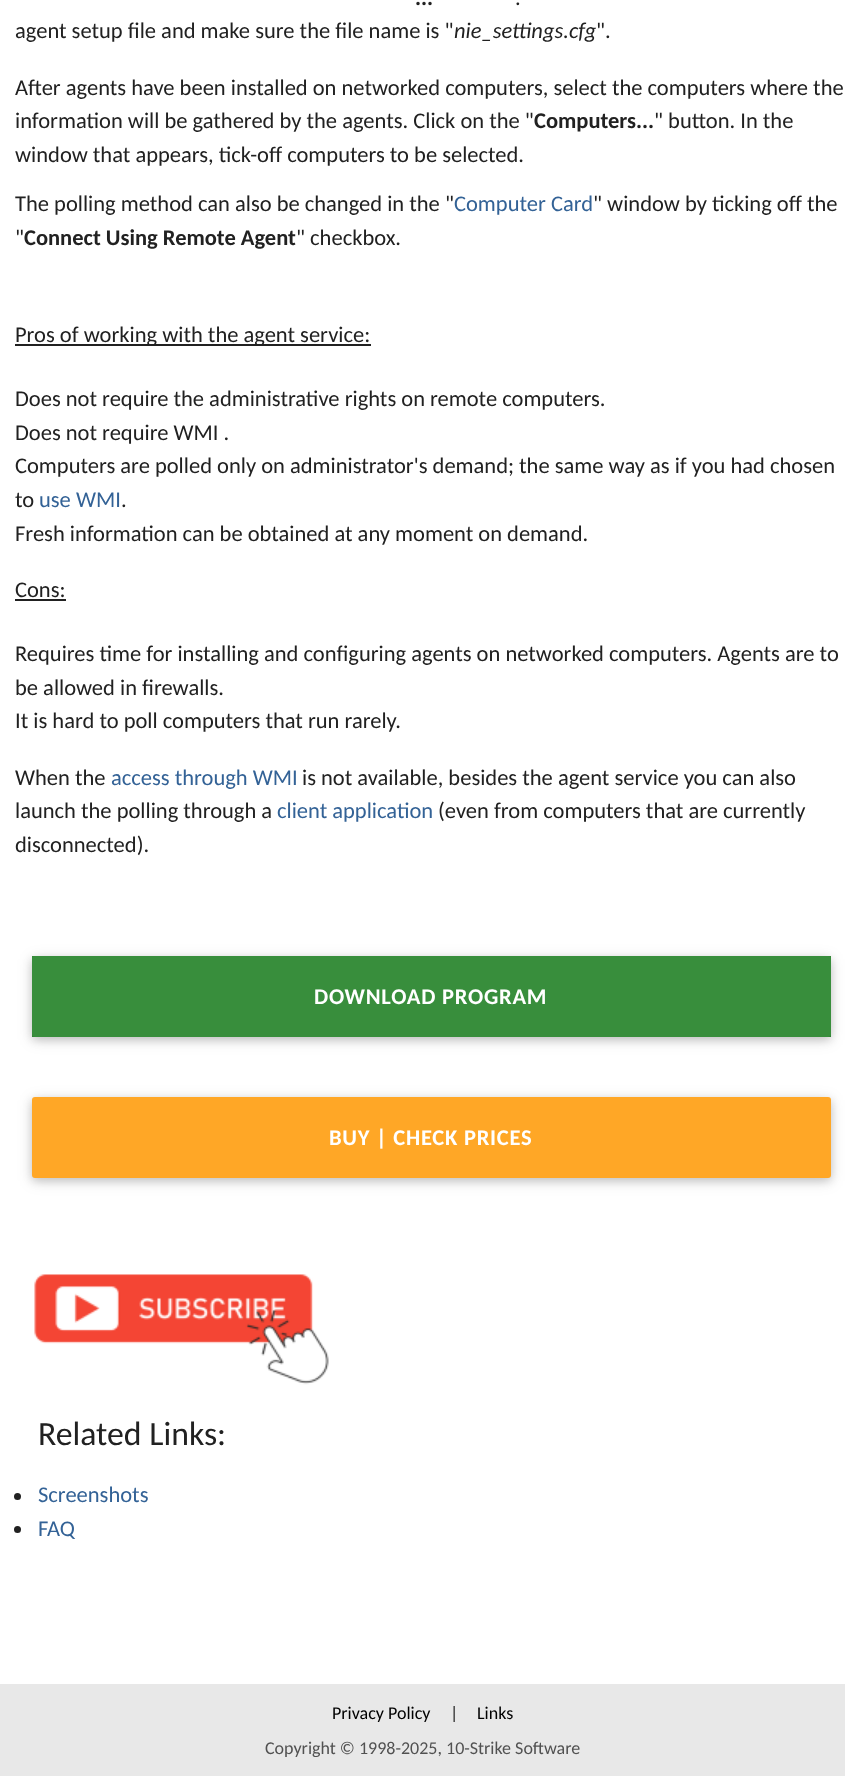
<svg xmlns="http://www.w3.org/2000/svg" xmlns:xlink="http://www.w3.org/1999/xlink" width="845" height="1776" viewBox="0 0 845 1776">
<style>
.cls-1{font:bold 22.5px Carlito;fill:#212121}
.cls-2{font:22.5px Carlito;fill:#212121}
.cls-3{font:italic 22.5px Carlito;fill:#212121}
.cls-4{font:22.5px Carlito;fill:#336296}
.cls-5{font:bold 22.5px Carlito;letter-spacing:0.75px;fill:#ffffff}
.cls-6{font:33.75px Carlito;fill:#212121}
.cls-7{font:18px Carlito;fill:#000000}
.cls-8{font:18px Carlito;fill:#212121}
.cls-9{font:18px Carlito;fill:#515151}
</style>
<rect width="100%" height="100%" fill="#ffffff"/>
<rect fill="#212121" x="15" y="344" width="356" height="2"/>
<rect fill="#212121" x="15" y="599" width="51" height="2"/>
<rect fill="#388e3c" x="32" y="956" width="799" height="81"/>
<rect fill="#000000" fill-opacity="0.12" filter="blur(7.5px)" x="32" y="959" width="799" height="81" rx="3"/>
<rect fill="#000000" fill-opacity="0.16" filter="blur(4px)" x="32" y="959" width="799" height="81" rx="3"/>
<rect fill="#388e3c" x="32" y="956" width="799" height="81" rx="3"/>
<rect fill="#000000" fill-opacity="0.12" filter="blur(7.5px)" x="32" y="1100" width="799" height="81" rx="3"/>
<rect fill="#000000" fill-opacity="0.16" filter="blur(4px)" x="32" y="1100" width="799" height="81" rx="3"/>
<rect fill="#ffa726" x="32" y="1097" width="799" height="81" rx="3"/>
<image xlink:href="image0.png" x="34" y="1274" width="295" height="111"/>
<circle fill="#212121" cx="17.5" cy="1496.5" r="3.5"/>
<circle fill="#212121" cx="17.5" cy="1529.5" r="3.5"/>
<rect fill="#e8e8e8" x="0" y="1684" width="845" height="92"/>
<text class="cls-1" x="415" y="5">...</text>
<text class="cls-2" x="515" y="5">.</text>
<text class="cls-2" x="15" y="38">agent setup file and make sure the file name is "</text>
<text class="cls-3" x="454" y="38">nie_settings.cfg</text>
<text class="cls-2" x="596" y="38">".</text>
<text class="cls-2"><tspan x="15" y="95">After agents have been installed on networked computers, select the computers where the</tspan><tspan x="15" y="128">information will be gathered by the agents. Click on the "</tspan></text>
<text class="cls-1" x="534" y="128">Computers...</text>
<text class="cls-2" x="654" y="128">" button. In the</text>
<text class="cls-2" x="15" y="162">window that appears, tick-off computers to be selected.</text>
<text class="cls-2" x="15" y="211">The polling method can also be changed in the "</text>
<text class="cls-4" x="454" y="211">Computer Card</text>
<text class="cls-2" x="593" y="211">" window by ticking off the</text>
<text class="cls-2" x="15" y="245">"</text>
<text class="cls-1" x="24" y="245">Connect Using Remote Agent</text>
<text class="cls-2" x="296" y="245">" checkbox.</text>
<text class="cls-2" x="15" y="342">Pros of working with the agent service:</text>
<text class="cls-2"><tspan x="15" y="406">Does not require the administrative rights on remote computers.</tspan><tspan x="15" y="440">Does not require WMI .</tspan><tspan x="15" y="473">Computers are polled only on administrator's demand; the same way as if you had chosen</tspan><tspan x="15" y="507">to</tspan></text>
<text class="cls-4" x="39" y="507">use WMI</text>
<text class="cls-2" x="121" y="507">.</text>
<text class="cls-2" x="15" y="541">Fresh information can be obtained at any moment on demand.</text>
<text class="cls-2" x="15" y="597">Cons:</text>
<text class="cls-2"><tspan x="15" y="661">Requires time for installing and configuring agents on networked computers. Agents are to</tspan><tspan x="15" y="695">be allowed in firewalls.</tspan><tspan x="15" y="728">It is hard to poll computers that run rarely.</tspan></text>
<text class="cls-2" x="15" y="785">When the</text>
<text class="cls-4" x="111" y="785">access through WMI</text>
<text class="cls-2" x="302" y="785">is not available, besides the agent service you can also</text>
<text class="cls-2" x="15" y="818">launch the polling through a</text>
<text class="cls-4" x="277" y="818">client application</text>
<text class="cls-2" x="438" y="818">(even from computers that are currently</text>
<text class="cls-2" x="15" y="852">disconnected).</text>
<text class="cls-5" x="314" y="1004">DOWNLOAD PROGRAM</text>
<text class="cls-5" x="329" y="1145">BUY | CHECK PRICES</text>
<text class="cls-6" x="38" y="1445">Related Links:</text>
<text class="cls-4"><tspan x="38" y="1502">Screenshots</tspan><tspan x="38" y="1536">FAQ</tspan></text>
<text class="cls-7" x="332" y="1719">Privacy Policy</text>
<text class="cls-8" x="450" y="1719">|</text>
<text class="cls-7" x="477" y="1719">Links</text>
<text class="cls-9" x="265" y="1754">Copyright © 1998-2025, 10-Strike Software</text>
</svg>
